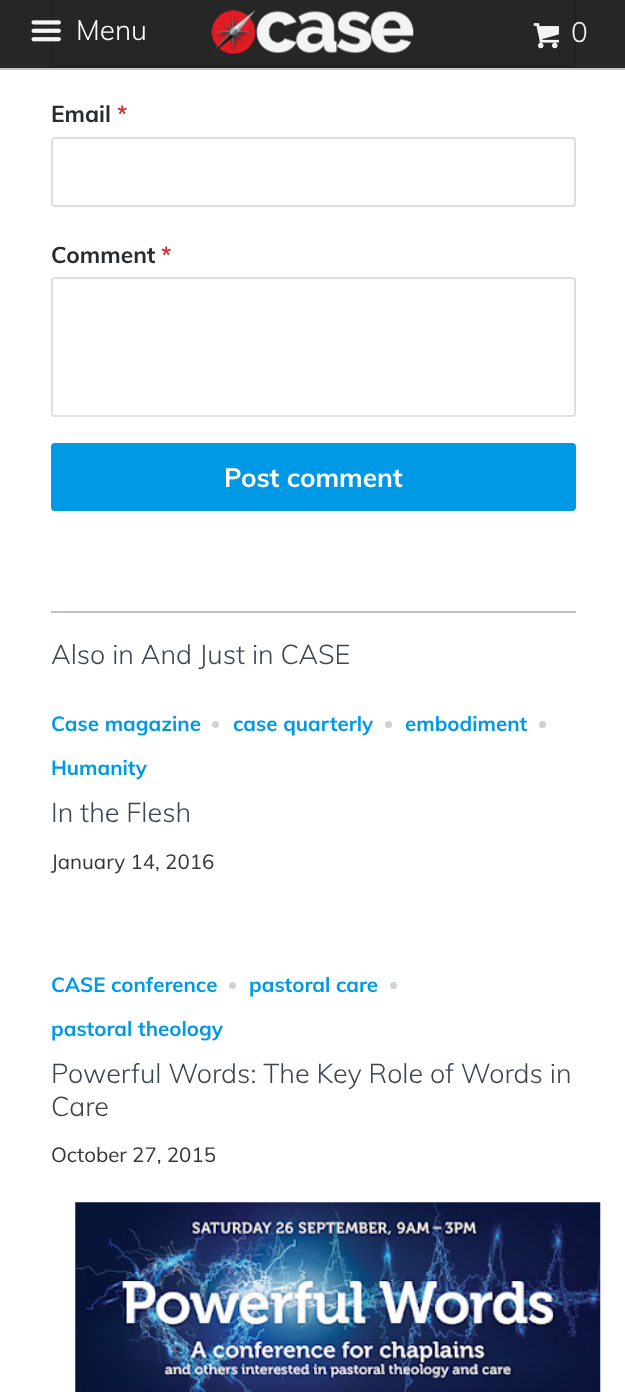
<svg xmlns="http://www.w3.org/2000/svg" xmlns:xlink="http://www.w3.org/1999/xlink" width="625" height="1392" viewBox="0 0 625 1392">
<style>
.cls-1{font:300 28px Muli;fill:#ffffff}
.cls-2{font:300 28px Muli;fill:#f4f4f4}
.cls-3{font:bold 22.75px Muli;fill:#282c2e}
.cls-4{font:bold 22.75px Muli;fill:#cc3333}
.cls-5{font:bold 26.25px Muli;fill:#ffffff}
.cls-6{font:300 27px Muli;fill:#3e4552}
.cls-7{font:bold 20.5px Muli;fill:#0099e5}
.cls-8{font:20.5px Muli;fill:#363636}
</style>
<rect width="100%" height="100%" fill="#ffffff"/>
<rect fill="#262626" x="0" y="0" width="625" height="68"/>
<rect fill="#bcc9c9" x="0" y="68" width="625" height="2"/>
<rect fill="none" stroke="#212121" stroke-width="2" x="52" y="-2" width="523" height="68" rx="3"/>
<image xlink:href="image0.png" x="31" y="20" width="30" height="22"/>
<image xlink:href="image1.png" x="211" y="9" width="203" height="46"/>
<image xlink:href="image2.png" x="533" y="23" width="26" height="26"/>
<rect fill="none" stroke="#dfdfdf" stroke-width="2" x="52" y="138" width="523" height="68" rx="3"/>
<rect fill="none" stroke="#dfdfdf" stroke-width="2" x="52" y="278" width="523" height="138" rx="3"/>
<rect fill="#0099e5" x="51" y="443" width="525" height="68" rx="4"/>
<rect fill="#b8c6c6" x="51" y="611" width="525" height="2"/>
<circle fill="#ced3d3" cx="215.5" cy="724.5" r="3.5"/>
<circle fill="#ced3d3" cx="388.5" cy="724.5" r="3.5"/>
<circle fill="#ced3d3" cx="542.5" cy="724.5" r="3.5"/>
<circle fill="#ced3d3" cx="232.5" cy="985.5" r="3.5"/>
<circle fill="#ced3d3" cx="393.5" cy="985.5" r="3.5"/>
<image xlink:href="image3.png" x="75" y="1202" width="526" height="190"/>
<text class="cls-1" x="76" y="40">Menu</text>
<text class="cls-2" x="571" y="42">0</text>
<text class="cls-3" x="51" y="122">Email</text>
<text class="cls-4" x="117" y="122">*</text>
<text class="cls-3" x="51" y="263">Comment</text>
<text class="cls-4" x="161" y="263">*</text>
<text class="cls-5" x="224" y="487">Post comment</text>
<text class="cls-6" x="51" y="664">Also in And Just in CASE</text>
<text class="cls-7" x="51" y="731">Case magazine</text>
<text class="cls-7" x="233" y="731">case quarterly</text>
<text class="cls-7" x="405" y="731">embodiment</text>
<text class="cls-7" x="51" y="775">Humanity</text>
<text class="cls-6" x="51" y="822">In the Flesh</text>
<text class="cls-8" x="51" y="869">January 14, 2016</text>
<text class="cls-7" x="51" y="992">CASE conference</text>
<text class="cls-7" x="249" y="992">pastoral care</text>
<text class="cls-7" x="51" y="1036">pastoral theology</text>
<text class="cls-6"><tspan x="51" y="1083">Powerful Words: The Key Role of Words in</tspan><tspan x="51" y="1116">Care</tspan></text>
<text class="cls-8" x="51" y="1162">October 27, 2015</text>
</svg>
